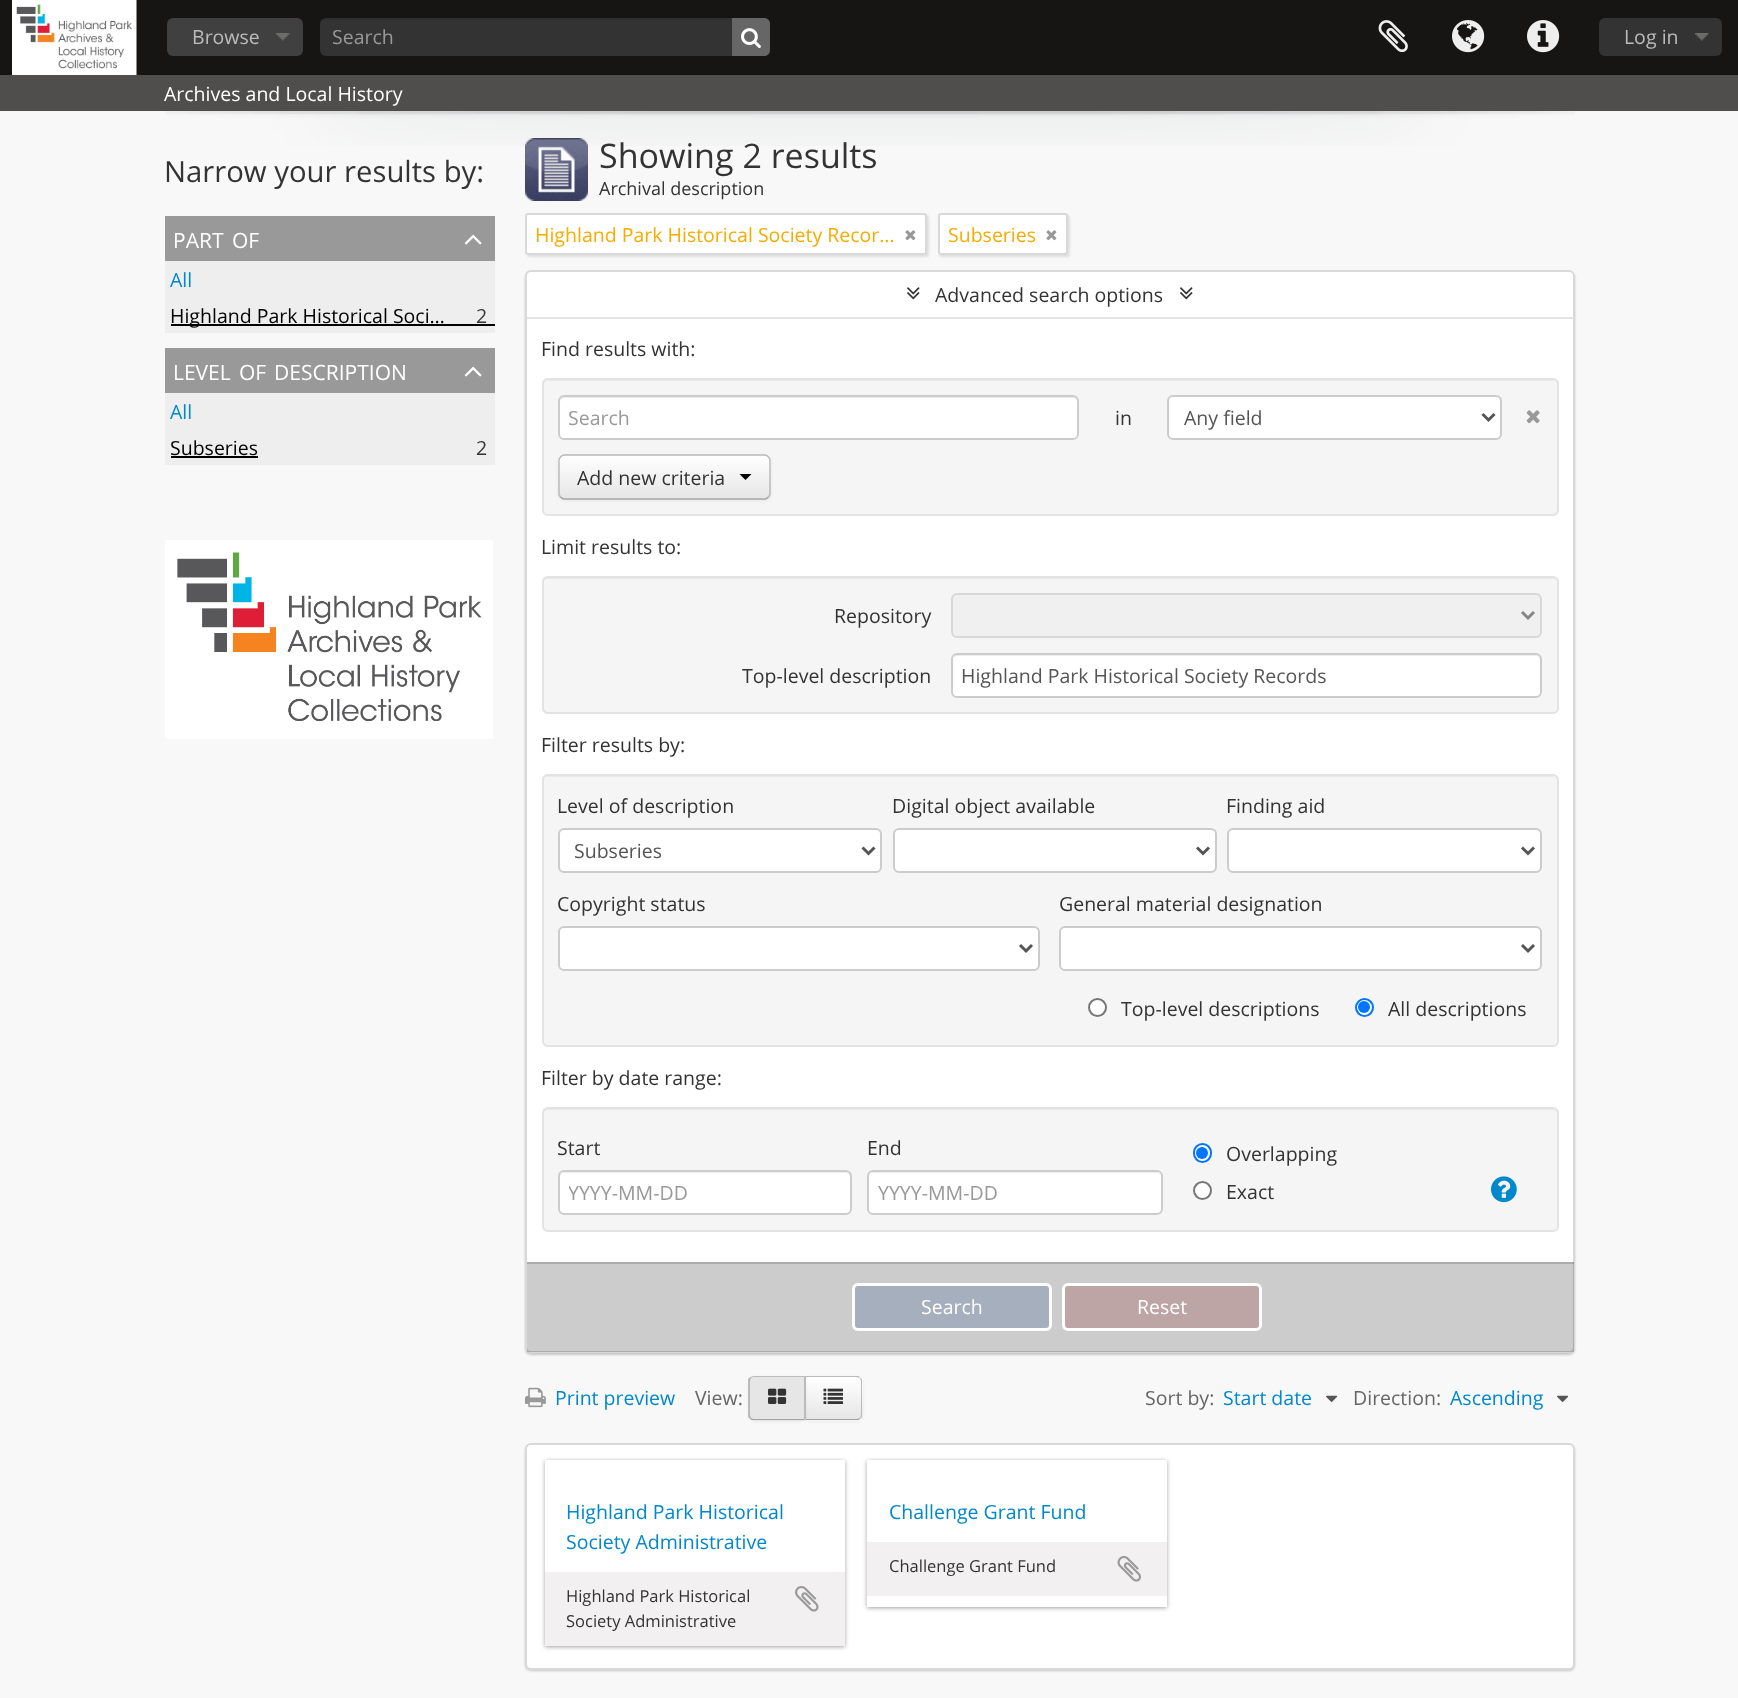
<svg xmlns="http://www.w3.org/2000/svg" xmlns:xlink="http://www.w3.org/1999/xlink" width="1738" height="1698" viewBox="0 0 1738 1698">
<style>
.cls-1{font:19.5px Open Sans;fill:#bbbbbb}
.cls-2{font:19.5px Open Sans;fill:#999999}
.cls-3{font:19.5px Open Sans;fill:#ffffff}
.cls-4{font:29.25px Open Sans;fill:#333333}
.cls-5{font:21px Open Sans;fill:#ffffff}
.cls-6{font:19.5px Open Sans;fill:#0088cc}
.cls-7{font:19.5px Open Sans;fill:#000000}
.cls-8{font:19.5px Open Sans;fill:#333333}
.cls-9{font:34px Open Sans;fill:#333333}
.cls-10{font:18px Open Sans;fill:#333333}
.cls-11{font:19.5px Open Sans;fill:#f6ac00}
.cls-12{font:19.5px Open Sans;fill:#555555}
.cls-13{font:19.5px Open Sans;fill:#666666}
.cls-14{font:16.5px Open Sans;fill:#333333}
</style>
<defs>
<clipPath id="clip1"><rect x="558" y="455" width="213" height="45" rx="6"/></clipPath>
<linearGradient id="g1" gradientUnits="userSpaceOnUse" x1="665" y1="456" x2="665" y2="498"><stop offset="0" stop-color="#ffffff"/><stop offset="1" stop-color="#e6e6e6"/></linearGradient>
<clipPath id="clip2"><path d="M804 1376H857C860.5 1376 863 1378.5 863 1382V1415C863 1418.5 860.5 1421 857 1421H804Z"/></clipPath>
<linearGradient id="g2" gradientUnits="userSpaceOnUse" x1="833" y1="1377" x2="833" y2="1419"><stop offset="0" stop-color="#ffffff"/><stop offset="1" stop-color="#e6e6e6"/></linearGradient>
<clipPath id="clip3"><rect x="569" y="1179" width="273" height="27"/></clipPath>
</defs>
<rect width="100%" height="100%" fill="#f8f8f8"/>
<rect fill="#161514" x="0" y="0" width="1738" height="75"/>
<image xlink:href="image0.png" x="12" y="0" width="125" height="75"/>
<rect fill="#404040" x="167" y="18" width="136" height="38" rx="6"/>
<image xlink:href="image1.png" x="276" y="33" width="14" height="8"/>
<rect fill="#333333" x="320" y="18" width="450" height="38" rx="6"/>
<path fill="#000000" fill-opacity="0.07" d="M326 20H764C767 20 770 22 770 26V24C770 21 767 18 764 18H326C323 18 320 21 320 24V26C320 22 322 20 326 20Z"/>
<path fill="#666666" d="M732 18H764C767.5 18 770 20.5 770 24V50C770 53.5 767.5 56 764 56H732Z"/>
<image xlink:href="image2.png" x="741" y="28" width="20" height="20"/>
<image xlink:href="image3.png" x="1378" y="20" width="30" height="33"/>
<image xlink:href="image4.png" x="1452" y="20" width="33" height="33"/>
<image xlink:href="image5.png" x="1527" y="20" width="33" height="33"/>
<rect fill="#333333" x="1599" y="18" width="123" height="38" rx="6"/>
<image xlink:href="image6.png" x="1695" y="33" width="14" height="8"/>
<rect fill="#4f4e4d" x="0" y="75" width="1738" height="36"/>
<image xlink:href="image7.png" x="165" y="111" width="1410" height="35"/>
<rect fill="#999999" x="165" y="216" width="330" height="45"/>
<image xlink:href="image8.png" x="464" y="234" width="18" height="11"/>
<rect fill="#eeeeee" x="165" y="261" width="330" height="72"/>
<rect fill="#000000" x="171" y="324" width="324" height="2"/>
<rect fill="#999999" x="165" y="348" width="330" height="45"/>
<image xlink:href="image8.png" x="464" y="366" width="18" height="11"/>
<rect fill="#eeeeee" x="165" y="393" width="330" height="72"/>
<rect fill="#000000" x="171" y="456" width="87" height="2"/>
<image xlink:href="image9.png" x="165" y="540" width="328" height="199"/>
<image xlink:href="image10.png" x="525" y="138" width="63" height="63"/>
<rect fill="#000000" fill-opacity="0.1" filter="blur(1px)" x="527" y="215" width="402" height="42" rx="3"/>
<rect fill="#ffffff" stroke="#d9d9d9" stroke-width="2" x="526" y="214" width="400" height="40" rx="2"/>
<image xlink:href="image11.png" x="905" y="230" width="11" height="11"/>
<rect fill="#000000" fill-opacity="0.1" filter="blur(1px)" x="939" y="215" width="131" height="42" rx="3"/>
<rect fill="#ffffff" stroke="#d9d9d9" stroke-width="2" x="939" y="214" width="128" height="40" rx="2"/>
<image xlink:href="image11.png" x="1046" y="230" width="11" height="11"/>
<rect fill="#000000" fill-opacity="0.2" filter="blur(1px)" x="525" y="272" width="1050" height="1083" rx="6"/>
<rect fill="#ffffff" stroke="#d9d9d9" stroke-width="2" x="526" y="271" width="1048" height="1081" rx="5"/>
<image xlink:href="image12.png" x="907" y="287" width="13" height="13"/>
<image xlink:href="image12.png" x="1180" y="287" width="13" height="13"/>
<rect fill="#e3e3e3" x="527" y="317" width="1047" height="2"/>
<rect fill="#f5f5f5" x="542" y="378" width="1017" height="138" rx="6"/>
<path fill="#e9e9e9" d="M548 381H1552C1555 381 1557 383 1557 386C1557 383 1555 380 1552 380H548C545 380 543 383 543 386C543 383 545 381 548 381Z"/>
<rect fill="none" stroke="#e3e3e3" stroke-width="2" x="543" y="379" width="1015" height="136" rx="5"/>
<rect fill="#ffffff" x="558" y="395" width="521" height="45" rx="6"/>
<path fill="#ececec" d="M564 398H1072C1075 398 1077 400 1077 402V401C1077 398 1075 396 1072 396H565C562 396 560 398 560 401V402C560 400 562 398 564 398Z"/>
<rect fill="none" stroke="#cccccc" stroke-width="2" x="559" y="396" width="519" height="43" rx="5"/>
<rect fill="#ffffff" stroke="#cccccc" stroke-width="2" x="1168" y="396" width="333" height="43" rx="5"/>
<path fill="none" stroke="#555555" stroke-width="3" d="M1482.5 414L1488.5 420L1494.5 414"/>
<image xlink:href="image13.png" x="1526" y="410" width="14" height="14"/>
<rect fill="#000000" fill-opacity="0.05" filter="blur(1.5px)" x="558" y="456" width="213" height="45" rx="6"/>
<rect fill="#f5f5f5" x="558" y="455" width="213" height="45" rx="6"/>
<g clip-path="url(#clip1)">
<rect fill="url(#g1)" x="558" y="456" width="213" height="42"/>
</g>
<path fill="none" stroke="#a2a2a2" stroke-width="1.5" d="M768.5 497C767.5 498 766.5 499 765 499H564C562.5 499 561.5 498 560.5 497"/>
<path fill="none" stroke="#bbbbbb" stroke-width="1.5" d="M560.5 497C559.5 496 559 495 559 493.5V460.5C559 459 559.5 458 560.5 457C561.5 456 562.5 455 564 455H765C766.5 455 767.5 456 768.5 457C769.5 458 770 459 770 460.5V493.5C770 495 769.5 496 768.5 497"/>
<path fill="#000000" d="M739.5 474H751.5L745.5 480Z"/>
<rect fill="#f5f5f5" x="542" y="576" width="1017" height="138" rx="6"/>
<path fill="#e9e9e9" d="M548 579H1552C1555 579 1557 581 1557 584C1557 581 1555 578 1552 578H548C545 578 543 581 543 584C543 581 545 579 548 579Z"/>
<rect fill="none" stroke="#e3e3e3" stroke-width="2" x="543" y="577" width="1015" height="136" rx="5"/>
<rect fill="#f0f0f0" stroke="#d8d8d8" stroke-width="2" x="952" y="594" width="589" height="43" rx="5"/>
<path fill="none" stroke="#858585" stroke-width="3" d="M1522 612L1528 618L1534 612"/>
<rect fill="#ffffff" x="951" y="653" width="591" height="45" rx="6"/>
<path fill="#ececec" d="M957 656H1536C1538 656 1540 658 1540 660V694C1541 693 1541 692 1541 691V659C1541 656 1539 654 1536 654H958C956 654 954 656 953 658C954 657 956 656 957 656Z"/>
<rect fill="none" stroke="#cccccc" stroke-width="2" x="952" y="654" width="589" height="43" rx="5"/>
<rect fill="#f5f5f5" x="542" y="774" width="1017" height="273" rx="6"/>
<path fill="#e9e9e9" d="M548 777H1552C1555 777 1557 779 1557 782C1557 779 1555 776 1552 776H548C545 776 543 779 543 782C543 779 545 777 548 777Z"/>
<rect fill="none" stroke="#e3e3e3" stroke-width="2" x="543" y="775" width="1015" height="271" rx="5"/>
<rect fill="#ffffff" stroke="#cccccc" stroke-width="2" x="559" y="829" width="322" height="43" rx="5"/>
<path fill="none" stroke="#555555" stroke-width="3" d="M862.5 847.5L868.5 853.5L874.5 847.5"/>
<rect fill="#ffffff" stroke="#cccccc" stroke-width="2" x="894" y="829" width="322" height="43" rx="5"/>
<path fill="none" stroke="#555555" stroke-width="3" d="M1197 847.5L1203 853.5L1209 847.5"/>
<rect fill="#ffffff" stroke="#cccccc" stroke-width="2" x="1228" y="829" width="313" height="43" rx="5"/>
<path fill="none" stroke="#555555" stroke-width="3" d="M1522 847.5L1528 853.5L1534 847.5"/>
<rect fill="#ffffff" stroke="#cccccc" stroke-width="2" x="559" y="927" width="480" height="43" rx="5"/>
<path fill="none" stroke="#555555" stroke-width="3" d="M1020 945L1026 951L1032 945"/>
<rect fill="#ffffff" stroke="#cccccc" stroke-width="2" x="1060" y="927" width="481" height="43" rx="5"/>
<path fill="none" stroke="#555555" stroke-width="3" d="M1522 945L1528 951L1534 945"/>
<circle fill="#ffffff" stroke="#767676" stroke-width="2" cx="1097.5" cy="1007.5" r="8.5"/>
<circle fill="#ffffff" stroke="#0075ff" stroke-width="2" cx="1364.5" cy="1007.5" r="8.5"/>
<circle fill="#0075ff" cx="1364" cy="1007" r="6"/>
<rect fill="#f5f5f5" x="542" y="1107" width="1017" height="125" rx="6"/>
<path fill="#e9e9e9" d="M548 1110H1552C1555 1110 1557 1112 1557 1114C1557 1111 1555 1109 1552 1109H548C545 1109 543 1111 543 1114C543 1112 545 1110 548 1110Z"/>
<rect fill="none" stroke="#e3e3e3" stroke-width="2" x="543" y="1108" width="1015" height="123" rx="5"/>
<rect fill="#ffffff" x="558" y="1170" width="294" height="45" rx="6"/>
<path fill="#ececec" d="M564 1173H846C848 1173 850 1175 850 1178V1210L849 1213C850 1212 851 1210 851 1209V1177C851 1174 849 1172 846 1172H565C562 1172 560 1174 560 1177V1178C560 1175 562 1173 564 1173Z"/>
<rect fill="none" stroke="#cccccc" stroke-width="2" x="559" y="1171" width="292" height="43" rx="5"/>
<rect fill="#ffffff" x="867" y="1170" width="296" height="45" rx="6"/>
<path fill="#ececec" d="M873 1173H1156C1159 1173 1161 1175 1161 1178C1161 1175 1159 1172 1156 1172H873C872 1172 871 1173 870 1174Z"/>
<rect fill="none" stroke="#cccccc" stroke-width="2" x="868" y="1171" width="294" height="43" rx="5"/>
<rect fill="#ffffff" stroke="#0075ff" stroke-width="2" x="1194" y="1144" width="17" height="18" rx="8.5"/>
<circle fill="#0075ff" cx="1202" cy="1153" r="6"/>
<circle fill="#ffffff" stroke="#767676" stroke-width="2" cx="1202.5" cy="1190.5" r="8.5"/>
<image xlink:href="image14.png" x="1491" y="1176" width="26" height="27"/>
<rect fill="#000000" fill-opacity="0.2" x="527" y="1262" width="1047" height="90"/>
<rect fill="#000000" fill-opacity="0.15" x="527" y="1262" width="1047" height="2"/>
<rect fill="#a5afbe" stroke="#ffffff" stroke-width="3" x="853.5" y="1284.5" width="197" height="45" rx="4.5"/>
<rect fill="#bea5a5" stroke="#ffffff" stroke-width="3" x="1063.5" y="1284.5" width="197" height="45" rx="4.5"/>
<image xlink:href="image15.png" x="525" y="1387" width="21" height="21"/>
<rect fill="#000000" fill-opacity="0.05" filter="blur(1.5px)" x="804" y="1377" width="59" height="45" rx="6"/>
<path fill="#f5f5f5" d="M804 1376H857C860.5 1376 863 1378.5 863 1382V1415C863 1418.5 860.5 1421 857 1421H804Z"/>
<g clip-path="url(#clip2)">
<rect fill="url(#g2)" x="806" y="1377" width="57" height="42"/>
</g>
<path fill="#bbbbbb" d="M806 1377H856C858 1377 859 1378 860 1378C860 1376 858 1376 856 1376H804L806 1378ZM860 1378C862 1378 862 1380 862 1382V1414C862 1416 862 1418 860 1418C860 1417 861 1416 861 1414V1382C861 1380 860 1379 860 1378Z"/>
<path fill="#a2a2a2" d="M860 1418C860 1420 858 1420 856 1420H804L806 1418V1419H856C858 1419 859 1418 860 1418Z"/>
<rect fill="#000000" fill-opacity="0.05" filter="blur(1.5px)" x="749" y="1377" width="57" height="45" rx="6"/>
<path fill="#e6e6e6" d="M755 1376H806V1421H755C751.5 1421 749 1418.5 749 1415V1382C749 1378.5 751.5 1376 755 1376Z"/>
<path fill="#bbbbbb" d="M754 1376L750 1377L751 1378L753 1377H804L805 1376Z"/>
<path fill="#bbbbbb" d="M806 1420L804 1419V1377L805 1376H806Z"/>
<path fill="#a2a2a2" d="M805 1420H754C753 1420 751 1420 750 1419L751 1418L753 1419H804Z"/>
<path fill="#bbbbbb" d="M748 1379L750 1377L751 1378C751 1379 750 1380 750 1382V1414C750 1416 751 1417 751 1418L750 1419L748 1417Z"/>
<image xlink:href="image16.png" x="768" y="1388" width="19" height="16"/>
<image xlink:href="image17.png" x="823" y="1388" width="20" height="16"/>
<image xlink:href="image18.png" x="1326" y="1395" width="12" height="7"/>
<image xlink:href="image18.png" x="1557" y="1395" width="12" height="7"/>
<rect fill="#000000" fill-opacity="0.2" filter="blur(1px)" x="525" y="1445" width="1050" height="226" rx="6"/>
<rect fill="#ffffff" stroke="#d9d9d9" stroke-width="2" x="526" y="1444" width="1048" height="225" rx="5"/>
<rect fill="#191919" fill-opacity="0.4" filter="blur(2px)" x="545" y="1461" width="300" height="186"/>
<rect fill="#ffffff" x="545" y="1460" width="300" height="112"/>
<rect fill="#f2f0f0" x="545" y="1572" width="300" height="74"/>
<image xlink:href="image19.png" x="795" y="1586" width="24" height="26"/>
<rect fill="#191919" fill-opacity="0.4" filter="blur(2px)" x="867" y="1461" width="300" height="147"/>
<rect fill="#ffffff" x="867" y="1460" width="300" height="147"/>
<rect fill="#f2f0f0" x="867" y="1542" width="300" height="54"/>
<image xlink:href="image20.png" x="1117" y="1556" width="24" height="26"/>
<text class="cls-1" x="192" y="44">Browse</text>
<text class="cls-2" x="332" y="44">Search</text>
<text class="cls-1" x="1624" y="44">Log in</text>
<text class="cls-3" x="164" y="101">Archives and Local History</text>
<text class="cls-4" x="164" y="182">Narrow your results by:</text>
<text class="cls-5" x="173" y="248">PART</text>
<text class="cls-5" x="232" y="248">OF</text>
<text class="cls-6" x="170" y="287">All</text>
<text class="cls-7" x="170" y="323">Highland Park Historical Soci…</text>
<text class="cls-8" x="476" y="323">2</text>
<text class="cls-5" x="173" y="380">LEVEL</text>
<text class="cls-5" x="239" y="380">OF</text>
<text class="cls-5" x="274" y="380">DESCRIPTION</text>
<text class="cls-6" x="170" y="419">All</text>
<text class="cls-7" x="170" y="455">Subseries</text>
<text class="cls-8" x="476" y="455">2</text>
<text class="cls-9" x="599" y="168">Showing 2 results</text>
<text class="cls-10" x="599" y="195">Archival description</text>
<text class="cls-11" x="535" y="242">Highland Park Historical Society Recor…</text>
<text class="cls-11" x="948" y="242">Subseries</text>
<text class="cls-8" x="935" y="302">Advanced search options</text>
<text class="cls-8" x="541" y="356">Find results with:</text>
<text class="cls-2" x="568" y="425">Search</text>
<text class="cls-8" x="1115" y="425">in</text>
<text class="cls-12" x="1184" y="425">Any field</text>
<text class="cls-8" x="577" y="485">Add new criteria</text>
<text class="cls-8" x="541" y="554">Limit results to:</text>
<text class="cls-8" x="834" y="623">Repository</text>
<text class="cls-8" x="742" y="683">Top-level description</text>
<text class="cls-12" x="961" y="683">Highland Park Historical Society Records</text>
<text class="cls-8" x="541" y="752">Filter results by:</text>
<text class="cls-8" x="557" y="813">Level of description</text>
<text class="cls-12" x="574" y="858">Subseries</text>
<text class="cls-8" x="892" y="813">Digital object available</text>
<text class="cls-8" x="1226" y="813">Finding aid</text>
<text class="cls-8" x="557" y="911">Copyright status</text>
<text class="cls-8" x="1059" y="911">General material designation</text>
<text class="cls-8" x="1121" y="1016">Top-level descriptions</text>
<text class="cls-8" x="1388" y="1016">All descriptions</text>
<text class="cls-8" x="541" y="1085">Filter by date range:</text>
<text class="cls-8" x="557" y="1155">Start</text>
<g clip-path="url(#clip3)">
<text class="cls-2" x="568" y="1200">YYYY-MM-DD</text>
</g>
<text class="cls-8" x="867" y="1155">End</text>
<text class="cls-2" x="878" y="1200">YYYY-MM-DD</text>
<text class="cls-8"><tspan x="1226" y="1161">Overlapping</tspan><tspan x="1226" y="1199">Exact</tspan></text>
<text class="cls-3" x="921" y="1314">Search</text>
<text class="cls-3" x="1137" y="1314">Reset</text>
<text class="cls-6" x="555" y="1405">Print preview</text>
<text class="cls-13" x="695" y="1405">View:</text>
<text class="cls-13" x="1145" y="1405">Sort by:</text>
<text class="cls-6" x="1223" y="1405">Start date</text>
<text class="cls-13" x="1353" y="1405">Direction:</text>
<text class="cls-6" x="1450" y="1405">Ascending</text>
<text class="cls-6"><tspan x="566" y="1519">Highland Park Historical</tspan><tspan x="566" y="1549">Society Administrative</tspan></text>
<text class="cls-14"><tspan x="566" y="1602">Highland Park Historical</tspan><tspan x="566" y="1627">Society Administrative</tspan></text>
<text class="cls-6" x="889" y="1519">Challenge Grant Fund</text>
<text class="cls-14" x="889" y="1572">Challenge Grant Fund</text>
</svg>
